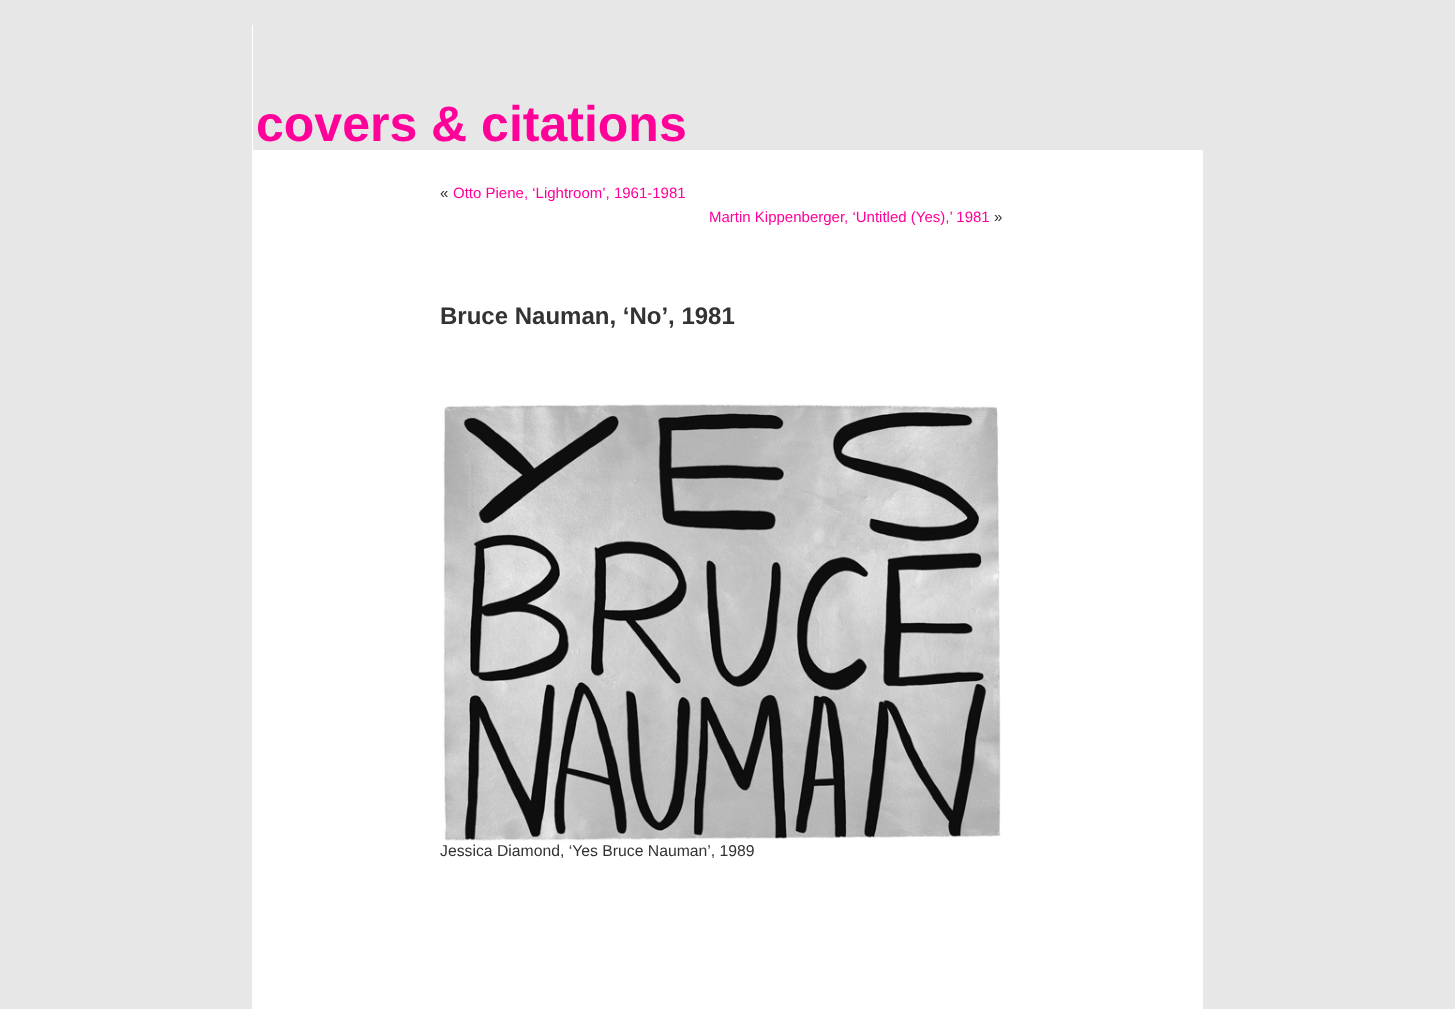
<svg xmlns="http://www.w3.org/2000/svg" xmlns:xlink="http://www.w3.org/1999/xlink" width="1455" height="1009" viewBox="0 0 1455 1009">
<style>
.cls-1{font:bold 50px Liberation Sans;fill:#ff0099}
.cls-2{font:15px Liberation Sans;fill:#333333}
.cls-3{font:15px Liberation Sans;fill:#ff0099}
.cls-4{font:bold 24px Liberation Sans;fill:#333333}
.cls-5{font:15.75px Liberation Sans;fill:#333333}
</style>
<rect width="100%" height="100%" fill="#e7e7e7"/>
<rect fill="#ffffff" x="252" y="25" width="951" height="984"/>
<rect fill="#e7e7e7" x="253" y="25" width="950" height="125"/>
<image xlink:href="image0.png" x="443" y="404" width="558" height="437"/>
<text class="cls-1" x="256" y="141">covers &amp; citations</text>
<text class="cls-2" x="440" y="198">«</text>
<text class="cls-3" x="453" y="198">Otto Piene, ‘Lightroom’, 1961-1981</text>
<text class="cls-3" x="709" y="222">Martin Kippenberger, ‘Untitled (Yes),’ 1981</text>
<text class="cls-2" x="994" y="222">»</text>
<text class="cls-4" x="440" y="324">Bruce Nauman, ‘No’, 1981</text>
<text class="cls-5" x="440" y="856">Jessica Diamond, ‘Yes Bruce Nauman’, 1989</text>
</svg>
